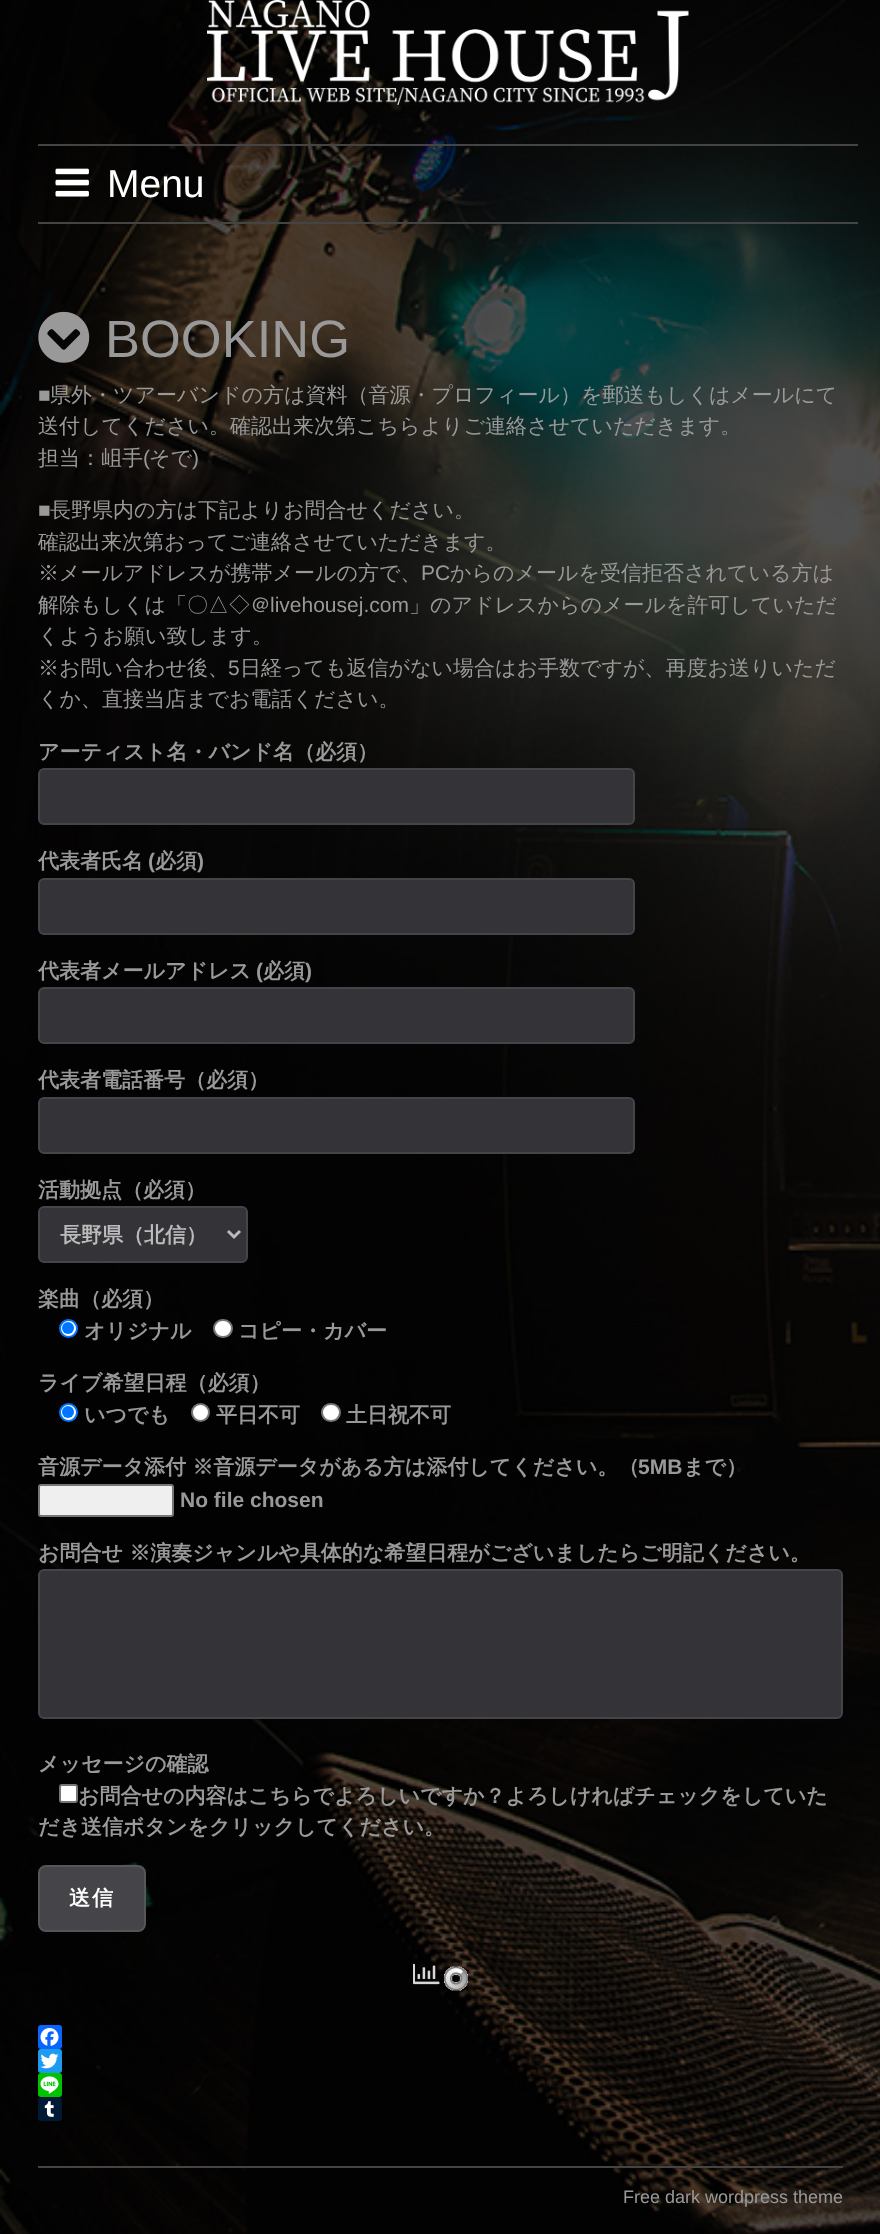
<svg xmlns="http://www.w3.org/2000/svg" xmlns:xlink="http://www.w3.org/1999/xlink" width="880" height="2234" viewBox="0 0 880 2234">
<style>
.cls-1{font:39px Liberation Sans;fill:#ffffff}
.cls-2{font:52.5px Liberation Sans;fill:#999999}
.cls-3{font:21px Liberation Sans;fill:#999999}
.cls-4{font:500 21px WenQuanYi Zen Hei;fill:#999999}
.cls-5{font:bold 21px WenQuanYi Zen Hei;fill:#999999}
.cls-6{font:bold 21px Liberation Sans;fill:#999999}
.cls-7{font:bold 21px WenQuanYi Zen Hei;fill:#bbbbbb}
.cls-8{font:bold 21px WenQuanYi Zen Hei;letter-spacing:2px;fill:#ffffff}
.cls-9{font:18px Liberation Sans;fill:#999999}
</style>
<rect width="100%" height="100%" fill="#ffffff"/>
<image xlink:href="image0.png" x="0" y="0" width="880" height="2234"/>
<image xlink:href="image1.png" x="207" y="0" width="482" height="105"/>
<rect fill="#444444" x="38" y="144" width="820" height="2"/>
<rect fill="#444444" x="38" y="222" width="820" height="2"/>
<image xlink:href="image2.png" x="55" y="168" width="34" height="29"/>
<image xlink:href="image3.png" x="38" y="311" width="52" height="52"/>
<rect fill="#333338" stroke="#444449" stroke-width="2" x="39" y="769" width="595" height="55" rx="5"/>
<rect fill="#333338" stroke="#444449" stroke-width="2" x="39" y="879" width="595" height="55" rx="5"/>
<rect fill="#333338" stroke="#444449" stroke-width="2" x="39" y="988" width="595" height="55" rx="5"/>
<rect fill="#333338" stroke="#444449" stroke-width="2" x="39" y="1098" width="595" height="55" rx="5"/>
<rect fill="#333338" stroke="#444449" stroke-width="2" x="39" y="1207" width="208" height="55" rx="5"/>
<path fill="none" stroke="#bbbbbb" stroke-width="3" d="M228 1231L234 1237L240 1231"/>
<circle fill="#ffffff" stroke="#0075ff" stroke-width="2" cx="68.5" cy="1328.5" r="8.5"/>
<circle fill="#0075ff" cx="68" cy="1328" r="6"/>
<rect fill="#ffffff" stroke="#767676" stroke-width="2" x="214" y="1320" width="18" height="17" rx="8.5"/>
<circle fill="#ffffff" stroke="#0075ff" stroke-width="2" cx="68.5" cy="1412.5" r="8.5"/>
<circle fill="#0075ff" cx="68" cy="1412" r="6"/>
<circle fill="#ffffff" stroke="#767676" stroke-width="2" cx="200.5" cy="1412.5" r="8.5"/>
<rect fill="#ffffff" stroke="#767676" stroke-width="2" x="322" y="1404" width="18" height="17" rx="8.5"/>
<rect fill="#efefef" stroke="#767676" stroke-width="2" x="39" y="1485" width="134" height="31" rx="2"/>
<rect fill="#333338" stroke="#444449" stroke-width="2" x="39" y="1570" width="803" height="148" rx="5"/>
<rect fill="#ffffff" stroke="#767676" stroke-width="2" x="60" y="1785" width="17" height="17" rx="2"/>
<rect fill="#444449" stroke="#55555a" stroke-width="2" x="39" y="1866" width="106" height="65" rx="7"/>
<image xlink:href="image4.png" x="413" y="1963" width="27" height="22"/>
<image xlink:href="image5.png" x="444" y="1966" width="24" height="25"/>
<rect fill="#0866ff" x="38" y="2025" width="24" height="24" rx="3"/>
<image xlink:href="image6.png" x="40" y="2028" width="19" height="18"/>
<rect fill="#1d9bf0" x="38" y="2049" width="24" height="24" rx="3"/>
<image xlink:href="image7.png" x="40" y="2053" width="19" height="16"/>
<rect fill="#00c300" x="38" y="2073" width="24" height="24" rx="3"/>
<image xlink:href="image8.png" x="40" y="2076" width="19" height="18"/>
<rect fill="#001935" x="38" y="2097" width="24" height="24" rx="3"/>
<image xlink:href="image9.png" x="44" y="2101" width="10" height="16"/>
<rect fill="#444444" x="38" y="2166" width="805" height="2"/>
<text class="cls-1" x="107" y="197">Menu</text>
<text class="cls-2" x="105" y="357">BOOKING</text>
<text class="cls-3" x="38" y="402">■</text>
<text class="cls-4" x="50" y="402">県外・ツアーバンドの方は資料（音源・プロフィール）を郵送もしくはメールにて</text>
<text class="cls-4"><tspan x="38" y="433">送付してください。確認出来次第こちらよりご連絡させていただきます。</tspan><tspan x="38" y="465">担当：岨手</tspan></text>
<text class="cls-3" x="143" y="465">(</text>
<text class="cls-4" x="149" y="465">そで</text>
<text class="cls-3" x="192" y="465">)</text>
<text class="cls-3" x="38" y="517">■</text>
<text class="cls-4" x="50" y="517">長野県内の方は下記よりお問合せください。</text>
<text class="cls-4"><tspan x="38" y="549">確認出来次第おってご連絡させていただきます。</tspan><tspan x="38" y="580">※メールアドレスが携帯メールの方で、</tspan></text>
<text class="cls-3" x="421" y="580">PC</text>
<text class="cls-4" x="450" y="580">からのメールを受信拒否されている方は</text>
<text class="cls-4" x="38" y="612">解除もしくは「〇△◇＠</text>
<text class="cls-3" x="270" y="612">livehousej.com</text>
<text class="cls-4" x="409" y="612">」のアドレスからのメールを許可していただ</text>
<text class="cls-4"><tspan x="38" y="643">くようお願い致します。</tspan><tspan x="38" y="675">※お問い合わせ後、</tspan></text>
<text class="cls-3" x="228" y="675">5</text>
<text class="cls-4" x="240" y="675">日経っても返信がない場合はお手数ですが、再度お送りいただ</text>
<text class="cls-4" x="38" y="706">くか、直接当店までお電話ください。</text>
<text class="cls-5" x="38" y="759">アーティスト名・バンド名（必須）</text>
<text class="cls-5" x="38" y="868">代表者氏名</text>
<text class="cls-6" x="148" y="868">(</text>
<text class="cls-5" x="155" y="868">必須</text>
<text class="cls-6" x="197" y="868">)</text>
<text class="cls-5" x="38" y="978">代表者メールアドレス</text>
<text class="cls-6" x="256" y="978">(</text>
<text class="cls-5" x="263" y="978">必須</text>
<text class="cls-6" x="305" y="978">)</text>
<text class="cls-5" x="38" y="1087">代表者電話番号（必須）</text>
<text class="cls-5" x="38" y="1197">活動拠点（必須）</text>
<text class="cls-7" x="60" y="1242">長野県（北信）</text>
<text class="cls-5" x="38" y="1306">楽曲（必須）</text>
<text class="cls-5" x="84" y="1338">オリジナル</text>
<text class="cls-5" x="238" y="1338">コピー・カバー</text>
<text class="cls-5" x="38" y="1390">ライブ希望日程（必須）</text>
<text class="cls-5" x="84" y="1422">いつでも</text>
<text class="cls-5" x="216" y="1422">平日不可</text>
<text class="cls-5" x="346" y="1422">土日祝不可</text>
<text class="cls-5" x="38" y="1474">音源データ添付 ※音源データがある方は添付してください。（</text>
<text class="cls-6" x="638" y="1474">5MB</text>
<text class="cls-5" x="683" y="1474">まで）</text>
<text class="cls-6" x="180" y="1507">No file chosen</text>
<text class="cls-5" x="38" y="1560">お問合せ ※演奏ジャンルや具体的な希望日程がございましたらご明記ください。</text>
<text class="cls-5" x="38" y="1771">メッセージの確認</text>
<text class="cls-5" x="78" y="1803">お問合せの内容はこちらでよろしいですか？よろしければチェックをしていた</text>
<text class="cls-5" x="38" y="1834">だき送信ボタンをクリックしてください。</text>
<text class="cls-8" x="69" y="1905">送信</text>
<text class="cls-9" x="623" y="2203">Free dark wordpress theme</text>
</svg>
